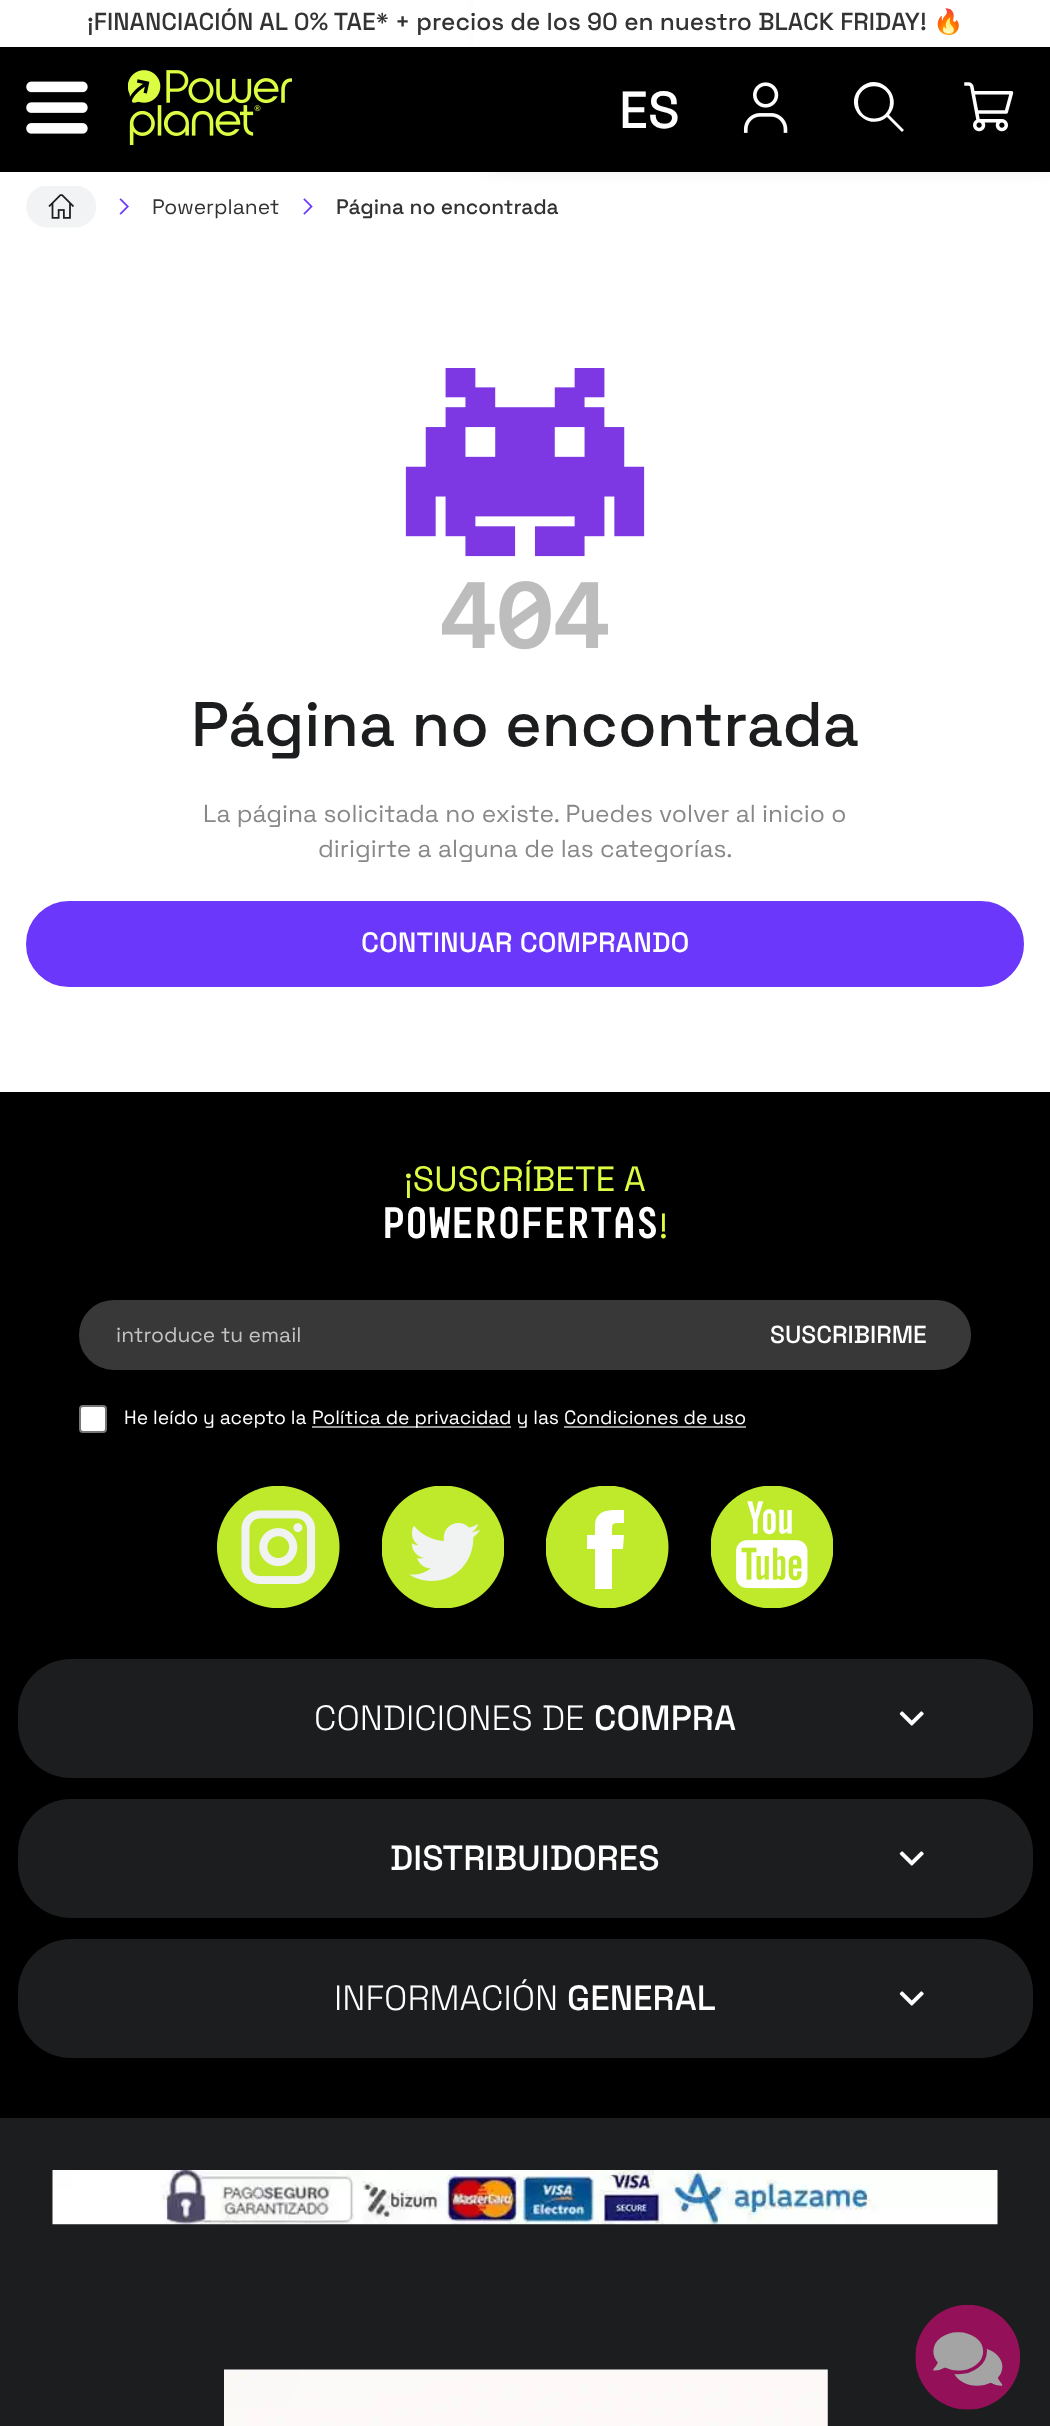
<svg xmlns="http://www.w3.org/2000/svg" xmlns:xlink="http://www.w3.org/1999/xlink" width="1050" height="2426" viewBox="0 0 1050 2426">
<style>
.cls-1{font:500 24.5px Space Grotesk;fill:#333333}
.cls-2{font:24.5px Noto Color Emoji;fill:#333333}
.cls-3{font:500 52px Space Grotesk;fill:#ffffff}
.cls-4{font:21px Space Grotesk;fill:#333333}
.cls-5{font:500 21px Space Grotesk;fill:#333333}
.cls-6{font:500 63px Space Grotesk;fill:#1c1d1e}
.cls-7{font:24.5px Space Grotesk;fill:#888888}
.cls-8{font:500 28px Space Grotesk;fill:#ffffff}
.cls-9{font:35px Space Grotesk;fill:#dcfe42}
.cls-10{font:bold 38.5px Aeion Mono;fill:#ffffff}
.cls-11{font:21px Space Grotesk;fill:#c3c3c3}
.cls-12{font:500 24.5px Space Grotesk;fill:#ffffff}
.cls-13{font:19.25px Space Grotesk;fill:#ffffff}
.cls-14{font:300 35px Space Grotesk;fill:#ffffff}
.cls-15{font:500 35px Space Grotesk;fill:#ffffff}
</style>
<defs>
<clipPath id="clip1"><rect x="546" y="1486" width="123" height="122"/></clipPath>
</defs>
<rect width="100%" height="100%" fill="#ffffff"/>
<rect fill="#000000" fill-opacity="0.18" filter="blur(10.5px)" x="490" y="-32" width="560" height="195"/>
<rect fill="#000000" x="0" y="47" width="1050" height="125"/>
<rect fill="#ffffff" x="473" y="0" width="577" height="47"/>
<image xlink:href="image0.png" x="26" y="81" width="62" height="53"/>
<image xlink:href="image1.png" x="128" y="70" width="164" height="75"/>
<image xlink:href="image2.png" x="743" y="82" width="45" height="51"/>
<path fill="#ffffff" d="M904 130L889 115C905 96 878 70 860 88C842 106 868 133 887 117L902 132ZM858 102C858 81 890 81 890 102C890 124 858 124 858 102Z"/>
<image xlink:href="image3.png" x="964" y="82" width="50" height="50"/>
<image xlink:href="image4.png" x="26" y="186" width="70" height="42"/>
<image xlink:href="image5.png" x="119" y="198" width="10" height="17"/>
<image xlink:href="image6.png" x="303" y="198" width="10" height="17"/>
<image xlink:href="image7.png" x="405" y="368" width="240" height="282"/>
<rect fill="#6b38fb" stroke="#6b38fb" stroke-width="2" x="27" y="902" width="996" height="84" rx="42"/>
<rect fill="#000000" x="0" y="1092" width="1050" height="1026"/>
<path fill="#383838" stroke="#383838" stroke-width="2" d="M114 1301H760V1369H114C95 1369 80 1354 80 1335C80 1316 95 1301 114 1301Z"/>
<path fill="#383838" d="M726 1300H936C955.5 1300 971 1315.5 971 1335C971 1354.5 955.5 1370 936 1370H726Z"/>
<rect fill="#ffffff" stroke="#767676" stroke-width="2" x="80" y="1406" width="26" height="26" rx="3"/>
<rect fill="#999999" x="312" y="1426" width="199" height="2"/>
<image xlink:href="image8.png" x="217" y="1486" width="123" height="122"/>
<image xlink:href="image9.png" x="382" y="1486" width="122" height="122"/>
<g clip-path="url(#clip1)">
<circle fill="#bfea2b" cx="607" cy="1547" r="61.5"/>
</g>
<path fill="#ffffff" d="M623 1549H612V1589H595V1549H587V1535H595V1524C597 1508 612 1510 624 1510V1523C611 1523 612 1522 612 1535H624Z"/>
<image xlink:href="image10.png" x="711" y="1486" width="122" height="122"/>
<rect fill="#1c1d1e" x="18" y="1659" width="1015" height="119" rx="53"/>
<image xlink:href="image11.png" x="899" y="1711" width="25" height="15"/>
<rect fill="#1c1d1e" x="18" y="1799" width="1015" height="119" rx="53"/>
<image xlink:href="image11.png" x="899" y="1851" width="25" height="15"/>
<rect fill="#1c1d1e" x="18" y="1939" width="1015" height="119" rx="53"/>
<image xlink:href="image11.png" x="899" y="1991" width="25" height="15"/>
<rect fill="#1c1d1e" x="0" y="2118" width="1050" height="308"/>
<image xlink:href="image12.png" x="52" y="2170" width="946" height="55"/>
<image xlink:href="image13.png" x="224" y="2369" width="604" height="57"/>
<image xlink:href="image14.png" x="915" y="2305" width="105" height="105"/>
<text class="cls-1" x="87" y="30">¡FINANCIACIÓN AL 0% TAE* + precios de los 90 en nuestro BLACK FRIDAY!</text>
<text class="cls-2" x="933" y="30">🔥</text>
<text class="cls-3" x="619" y="128">ES</text>
<text class="cls-4" x="152" y="214">Powerplanet</text>
<text class="cls-5" x="336" y="214">Página no encontrada</text>
<text class="cls-6" x="191" y="746">Página no encontrada</text>
<text class="cls-7" x="203" y="822">La página solicitada no existe. Puedes volver al inicio o</text>
<text class="cls-7" x="318" y="857">dirigirte a alguna de las categorías.</text>
<text class="cls-8" x="361" y="952">CONTINUAR COMPRANDO</text>
<text class="cls-9" x="404" y="1191">¡SUSCRÍBETE A</text>
<text class="cls-10" x="382" y="1238">POWEROFERTAS</text>
<text class="cls-9" x="659" y="1238">!</text>
<text class="cls-11" x="116" y="1342">introduce tu email</text>
<text class="cls-12" x="770" y="1343">SUSCRIBIRME</text>
<text class="cls-13" x="124" y="1424">He leído y acepto la</text>
<text class="cls-13" x="312" y="1424">Política de privacidad y las Condiciones de uso</text>
<rect fill="#999999" x="564" y="1426" width="182" height="2"/>
<text class="cls-14" x="314" y="1730">CONDICIONES DE</text>
<text class="cls-15" x="594" y="1730">COMPRA</text>
<text class="cls-15" x="390" y="1870">DISTRIBUIDORES</text>
<text class="cls-14" x="334" y="2010">INFORMACIÓN</text>
<text class="cls-15" x="567" y="2010">GENERAL</text>
</svg>
